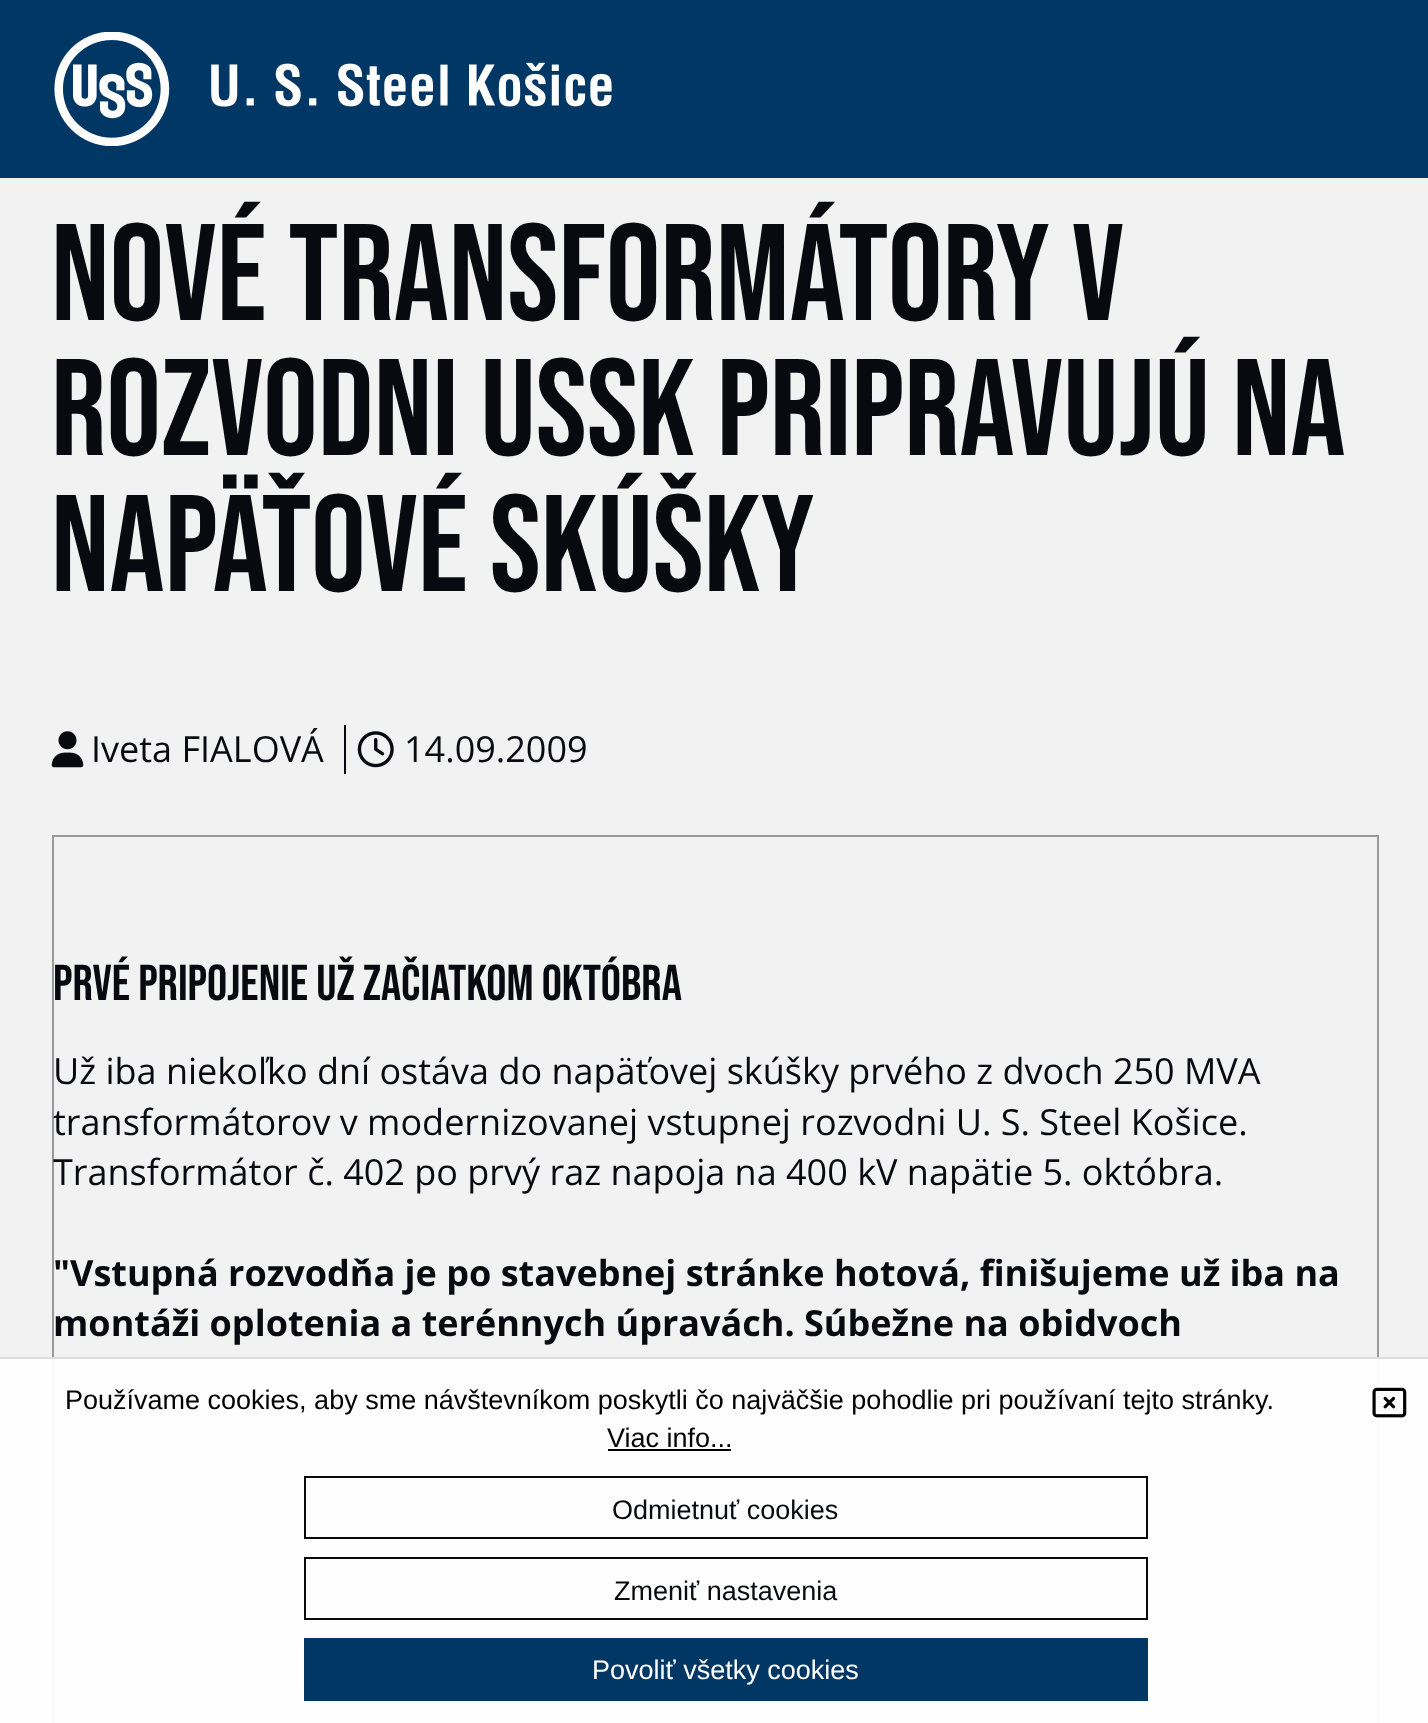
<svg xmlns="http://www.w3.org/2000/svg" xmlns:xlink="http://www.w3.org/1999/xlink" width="1428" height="1723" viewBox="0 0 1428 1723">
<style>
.cls-1{font:137.25px Bebas Neue;fill:#080a10}
.cls-2{font:36px Open Sans;fill:#080a10}
.cls-3{font:50.4px Bebas Neue;fill:#080a10}
.cls-4{font:bold 36px Open Sans;fill:#080a10}
.cls-5{font:27px Liberation Sans;fill:#000000}
.cls-6{font:27px Liberation Sans;fill:#080a10}
.cls-7{font:27px Liberation Sans;fill:#ffffff}
</style>
<rect width="100%" height="100%" fill="#f2f2f2"/>
<rect fill="#fefefe" x="0" y="1359" width="1428" height="364"/>
<rect fill="#003764" x="0" y="0" width="1428" height="178"/>
<image xlink:href="image0.png" x="54" y="32" width="558" height="114"/>
<image xlink:href="image1.png" x="51" y="731" width="33" height="37"/>
<rect fill="#080a10" x="344" y="725" width="2" height="49"/>
<image xlink:href="image2.png" x="357" y="731" width="37" height="37"/>
<rect fill="#999999" x="52" y="835" width="1327" height="2"/>
<rect fill="#999999" x="1377" y="835" width="2" height="522"/>
<rect fill="#fafafa" x="1377" y="1357" width="2" height="366"/>
<rect fill="#999999" x="52" y="835" width="2" height="522"/>
<rect fill="#fafafa" x="52" y="1357" width="2" height="366"/>
<rect fill="#dddddd" x="0" y="1357" width="1428" height="2"/>
<rect fill="#000000" x="608" y="1449" width="123" height="2"/>
<image xlink:href="image3.png" x="1372" y="1387" width="35" height="31"/>
<rect fill="none" stroke="#080a10" stroke-width="2" x="305" y="1477" width="842" height="61"/>
<rect fill="none" stroke="#080a10" stroke-width="2" x="305" y="1558" width="842" height="61"/>
<rect fill="#003764" x="304" y="1638" width="844" height="63"/>
<text class="cls-1"><tspan x="51" y="320">NOVÉ TRANSFORMÁTORY V</tspan><tspan x="51" y="455">ROZVODNI USSK PRIPRAVUJÚ NA</tspan><tspan x="51" y="591">NAPÄŤOVÉ SKÚŠKY</tspan></text>
<text class="cls-2" x="91" y="762">Iveta FIALOVÁ</text>
<text class="cls-2" x="404" y="762">14.09.2009</text>
<text class="cls-3" x="53" y="1000">PRVÉ PRIPOJENIE UŽ ZAČIATKOM OKTÓBRA</text>
<text class="cls-2"><tspan x="53" y="1084">Už iba niekoľko dní ostáva do napäťovej skúšky prvého z dvoch 250 MVA</tspan><tspan x="53" y="1135">transformátorov v modernizovanej vstupnej rozvodni U. S. Steel Košice.</tspan><tspan x="53" y="1185">Transformátor č. 402 po prvý raz napoja na 400 kV napätie 5. októbra.</tspan></text>
<text class="cls-4"><tspan x="53" y="1286">"Vstupná rozvodňa je po stavebnej stránke hotová, finišujeme už iba na</tspan><tspan x="53" y="1336">montáži oplotenia a terénnych úpravách. Súbežne na obidvoch</tspan></text>
<text class="cls-5" x="65" y="1409">Používame cookies, aby sme návštevníkom poskytli čo najväčšie pohodlie pri používaní tejto stránky.</text>
<text class="cls-5" x="607" y="1447">Viac info...</text>
<text class="cls-6" x="612" y="1519">Odmietnuť cookies</text>
<text class="cls-6" x="614" y="1600">Zmeniť nastavenia</text>
<text class="cls-7" x="592" y="1679">Povoliť všetky cookies</text>
</svg>
